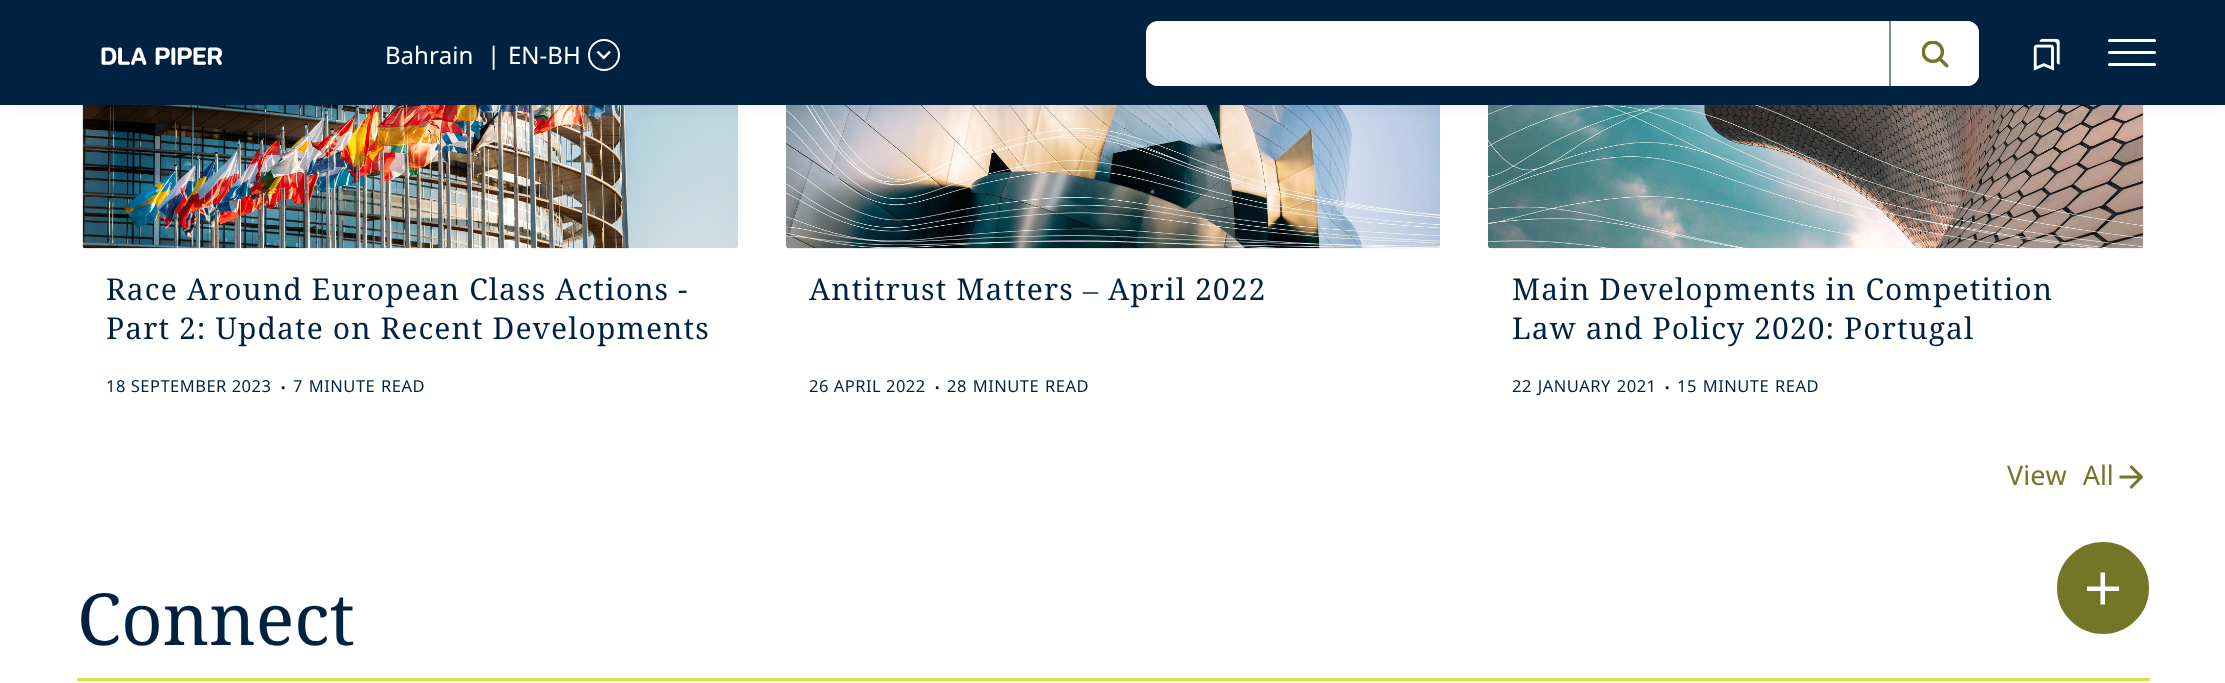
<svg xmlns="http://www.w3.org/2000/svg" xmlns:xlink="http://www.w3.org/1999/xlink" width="2225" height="683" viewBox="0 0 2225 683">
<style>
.cls-1{font:24px Noto Sans;fill:#ffffff}
.cls-2{font:30px Noto Serif;letter-spacing:1.1px;fill:#002240}
.cls-3{font:16.5px Noto Sans;letter-spacing:0.5px;fill:#002240}
.cls-4{font:24px Noto Sans;letter-spacing:0.5px;fill:#002240}
.cls-5{font:30px Liberation Serif;letter-spacing:1.1px;fill:#002240}
.cls-6{font:27px Noto Sans;fill:#737627}
.cls-7{font:72px Noto Serif;fill:#002240}
</style>
<rect width="100%" height="100%" fill="#ffffff"/>
<image xlink:href="image4.png" x="82" y="105" width="656" height="144"/>
<image xlink:href="image5.png" x="786" y="105" width="654" height="144"/>
<image xlink:href="image6.png" x="1488" y="105" width="656" height="144"/>
<rect fill="#000c17" fill-opacity="0.15" filter="blur(11px)" x="0" y="-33" width="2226" height="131"/>
<rect fill="#002240" x="0" y="0" width="2225" height="105"/>
<image xlink:href="image0.png" x="101" y="47" width="121" height="18"/>
<circle fill="none" stroke="#ffffff" stroke-width="2" cx="604" cy="55" r="15"/>
<image xlink:href="image1.png" x="596" y="50" width="15" height="10"/>
<rect fill="#ffffff" x="1146" y="21" width="833" height="65" rx="12"/>
<path fill="#ffffff" d="M1158 23H1889V86H1158C1151.5 86 1146 80.5 1146 74V35C1146 28.5 1151.5 23 1158 23Z"/>
<path fill="#ffffff" d="M1889 21H1967C1973.5 21 1979 26.5 1979 33V74C1979 80.5 1973.5 86 1967 86H1889Z"/>
<rect fill="#7e8c9a" x="1889" y="21" width="2" height="65"/>
<image xlink:href="image2.png" x="1922" y="41" width="27" height="27"/>
<image xlink:href="image3.png" x="2033" y="38" width="27" height="33"/>
<rect fill="#ffffff" x="2108" y="39" width="48" height="3" rx="1.5"/>
<rect fill="#ffffff" x="2108" y="51" width="48" height="3" rx="1.5"/>
<rect fill="#ffffff" x="2108" y="63" width="48" height="3" rx="1.5"/>
<image xlink:href="image7.png" x="2119" y="465" width="25" height="24"/>
<rect fill="#ddde4c" x="77" y="678" width="2073" height="3"/>
<circle fill="#737627" stroke="#ffffff" stroke-width="2" cx="2103" cy="588" r="47"/>
<path fill="#ffffff" d="M2100.5 604.5V591H2087V586.5H2100.5V572.5H2105V586.5H2119V591H2105V604.5Z"/>
<text class="cls-1" x="385" y="64">Bahrain</text>
<text class="cls-1" x="487" y="64">|</text>
<text class="cls-1" x="508" y="64">EN-BH</text>
<text class="cls-2"><tspan x="106" y="300">Race Around European Class Actions -</tspan><tspan x="106" y="339">Part 2: Update on Recent Developments</tspan></text>
<text class="cls-3" x="106" y="392">18 SEPTEMBER 2023</text>
<text class="cls-4" x="280" y="389">.</text>
<text class="cls-3" x="293" y="392" word-spacing="1">7 MINUTE READ</text>
<text class="cls-2" x="809" y="300">Antitrust Matters</text>
<text class="cls-5" x="1083" y="300">–</text>
<text class="cls-2" x="1108" y="300">April 2022</text>
<text class="cls-3" x="809" y="392">26 APRIL 2022</text>
<text class="cls-4" x="934" y="389">.</text>
<text class="cls-3" x="947" y="392" word-spacing="1">28 MINUTE READ</text>
<text class="cls-2"><tspan x="1512" y="300">Main Developments in Competition</tspan><tspan x="1512" y="339">Law and Policy 2020: Portugal</tspan></text>
<text class="cls-3" x="1512" y="392" word-spacing="1">22 JANUARY 2021</text>
<text class="cls-4" x="1664" y="389">.</text>
<text class="cls-3" x="1677" y="392" word-spacing="1">15 MINUTE READ</text>
<text class="cls-6" x="2007" y="485" word-spacing="9">View All</text>
<text class="cls-7" x="77" y="645">Connect</text>
</svg>
